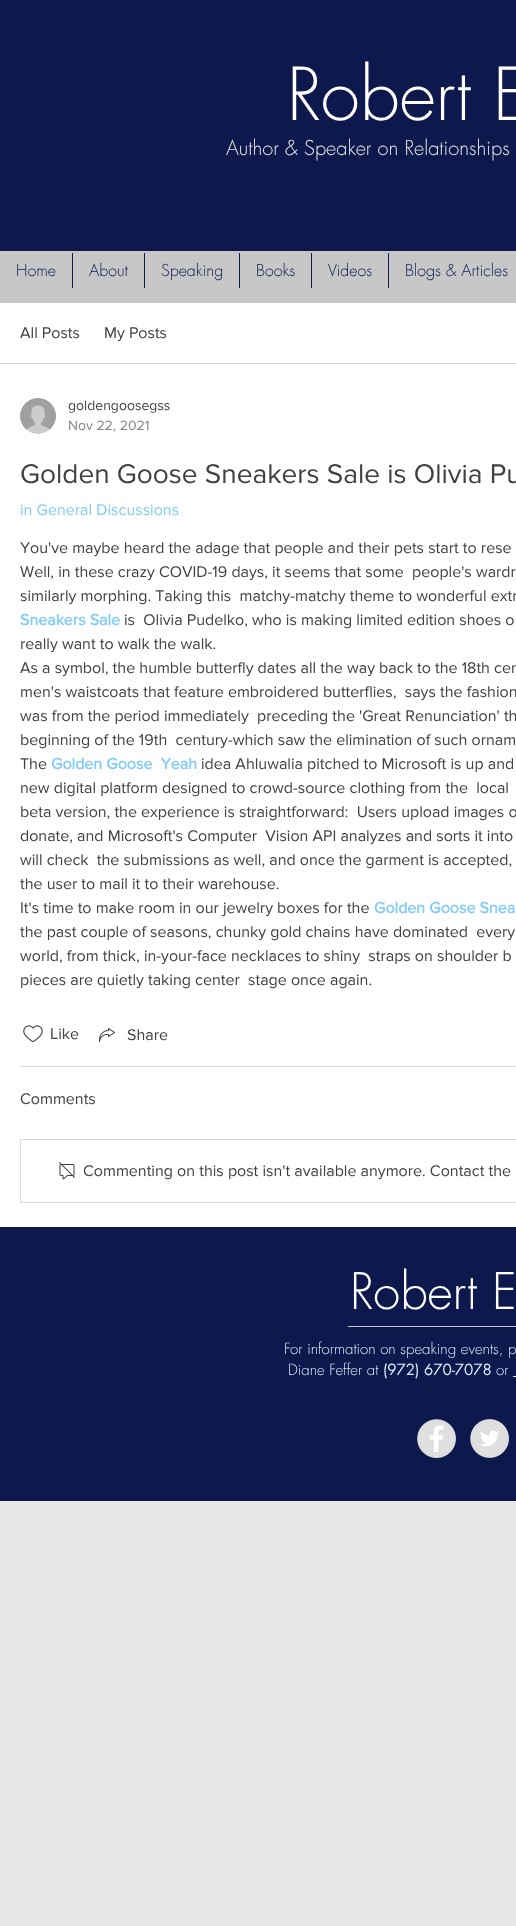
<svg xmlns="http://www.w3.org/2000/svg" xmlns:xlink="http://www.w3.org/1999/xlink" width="516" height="1926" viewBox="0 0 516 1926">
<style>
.cls-1{font:300 71px futura;fill:#ffffff}
.cls-2{font:300 20px futura;fill:#e8e6e6}
.cls-3{font:300 16px futura;fill:#0d184d}
.cls-4{font:16px 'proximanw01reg';fill:#414141}
.cls-5{font:14px 'proximanw01reg';fill:#414141}
.cls-6{font:14px 'proximanw01reg';fill:#858585}
.cls-7{font:28px 'proximanw01reg';fill:#414141}
.cls-8{font:16px 'proximanw01reg';fill:#7fccf7}
.cls-9{font:bold 16px 'proximanw01reg';fill:#7fccf7}
.cls-10{font:300 49px futura;fill:#ffffff}
.cls-11{font:300 15px futura;fill:#d9f0fd}
.cls-12{font:15px futura;fill:#d9f0fd}
</style>
<rect width="100%" height="100%" fill="#e8e6e6"/>
<rect fill="#0d184d" x="0" y="0" width="516" height="251"/>
<rect fill="#c7c7c7" x="0" y="251" width="516" height="52"/>
<rect fill="#0d184d" x="72" y="253" width="1" height="35"/>
<rect fill="#0d184d" x="144" y="253" width="1" height="35"/>
<rect fill="#0d184d" x="239" y="253" width="1" height="35"/>
<rect fill="#0d184d" x="311" y="253" width="1" height="35"/>
<rect fill="#0d184d" x="388" y="253" width="1" height="35"/>
<rect fill="#ffffff" x="0" y="303" width="516" height="924"/>
<rect fill="#d9d9d9" x="0" y="363" width="516" height="1"/>
<image xlink:href="image0.png" x="20" y="398" width="36" height="36"/>
<image xlink:href="image1.png" x="23" y="1025" width="20" height="18"/>
<image xlink:href="image2.png" x="99" y="1028" width="16" height="14"/>
<rect fill="#d9d9d9" x="20" y="1066" width="496" height="1"/>
<rect fill="none" stroke="#d9d9d9" x="20.5" y="1139.5" width="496" height="63"/>
<image xlink:href="image3.png" x="59" y="1162" width="16" height="18"/>
<rect fill="#0d184d" x="0" y="1227" width="516" height="274"/>
<rect fill="#c7c7c7" x="348" y="1326" width="168" height="1"/>
<rect fill="#d9f0fd" x="513" y="1376" width="3" height="1"/>
<image xlink:href="image4.png" x="417" y="1419" width="39" height="39"/>
<image xlink:href="image5.png" x="470" y="1419" width="39" height="39"/>
<text class="cls-1" x="287" y="120">Robert E</text>
<text class="cls-2" x="226" y="155">Author &amp; Speaker on Relationships</text>
<text class="cls-3" x="16" y="276">Home</text>
<text class="cls-3" x="89" y="276">About</text>
<text class="cls-3" x="161" y="276">Speaking</text>
<text class="cls-3" x="256" y="276">Books</text>
<text class="cls-3" x="328" y="276">Videos</text>
<text class="cls-3" x="405" y="276">Blogs &amp; Articles</text>
<text class="cls-4" x="20" y="338">All Posts</text>
<text class="cls-4" x="104" y="338">My Posts</text>
<text class="cls-5" x="68" y="410">goldengoosegss</text>
<text class="cls-6" x="68" y="430">Nov 22, 2021</text>
<text class="cls-7" x="20" y="483">Golden Goose Sneakers Sale is Olivia Pu</text>
<text class="cls-8" x="20" y="515">in General Discussions</text>
<text class="cls-4" xml:space="preserve"><tspan x="20" y="553">You've maybe heard the adage that people and their pets start to rese</tspan><tspan x="20" y="577">Well, in these crazy COVID-19 days, it seems that some  people's wardr</tspan><tspan x="20" y="601">similarly morphing. Taking this  matchy-matchy theme to wonderful extr</tspan></text>
<text class="cls-9" x="20" y="625">Sneakers Sale</text>
<text class="cls-4" xml:space="preserve" x="124" y="625">is  Olivia Pudelko, who is making limited edition shoes o</text>
<text class="cls-4" xml:space="preserve"><tspan x="20" y="649">really want to walk the walk.</tspan><tspan x="20" y="673">As a symbol, the humble butterfly dates all the way back to the 18th cen</tspan><tspan x="20" y="697">men's waistcoats that feature embroidered butterflies,  says the fashion</tspan><tspan x="20" y="721">was from the period immediately  preceding the 'Great Renunciation' th</tspan><tspan x="20" y="745">beginning of the 19th  century-which saw the elimination of such ornam</tspan><tspan x="20" y="769">The</tspan></text>
<text class="cls-9" xml:space="preserve" x="51" y="769">Golden Goose  Yeah</text>
<text class="cls-4" x="201" y="769">idea Ahluwalia pitched to Microsoft is up and</text>
<text class="cls-4" xml:space="preserve"><tspan x="20" y="793">new digital platform designed to crowd-source clothing from the  local</tspan><tspan x="20" y="817">beta version, the experience is straightforward:  Users upload images o</tspan><tspan x="20" y="841">donate, and Microsoft's Computer  Vision API analyzes and sorts it into</tspan><tspan x="20" y="865">will check  the submissions as well, and once the garment is accepted,</tspan><tspan x="20" y="889">the user to mail it to their warehouse.</tspan><tspan x="20" y="913">It's time to make room in our jewelry boxes for the</tspan></text>
<text class="cls-9" x="374" y="913">Golden Goose Snea</text>
<text class="cls-4" xml:space="preserve"><tspan x="20" y="937">the past couple of seasons, chunky gold chains have dominated  every</tspan><tspan x="20" y="961">world, from thick, in-your-face necklaces to shiny  straps on shoulder b</tspan><tspan x="20" y="985">pieces are quietly taking center  stage once again.</tspan></text>
<text class="cls-4" x="50" y="1039">Like</text>
<text class="cls-4" x="127" y="1040">Share</text>
<text class="cls-4" x="20" y="1104">Comments</text>
<text class="cls-4" x="83" y="1176">Commenting on this post isn't available anymore. Contact the</text>
<text class="cls-10" x="350" y="1309">Robert E</text>
<text class="cls-11" x="284" y="1354">For information on speaking events, p</text>
<text class="cls-11" x="288" y="1375">Diane Feffer at</text>
<text class="cls-12" x="383" y="1375">(972) 670-7078</text>
<text class="cls-11" x="496" y="1375">or</text>
</svg>
